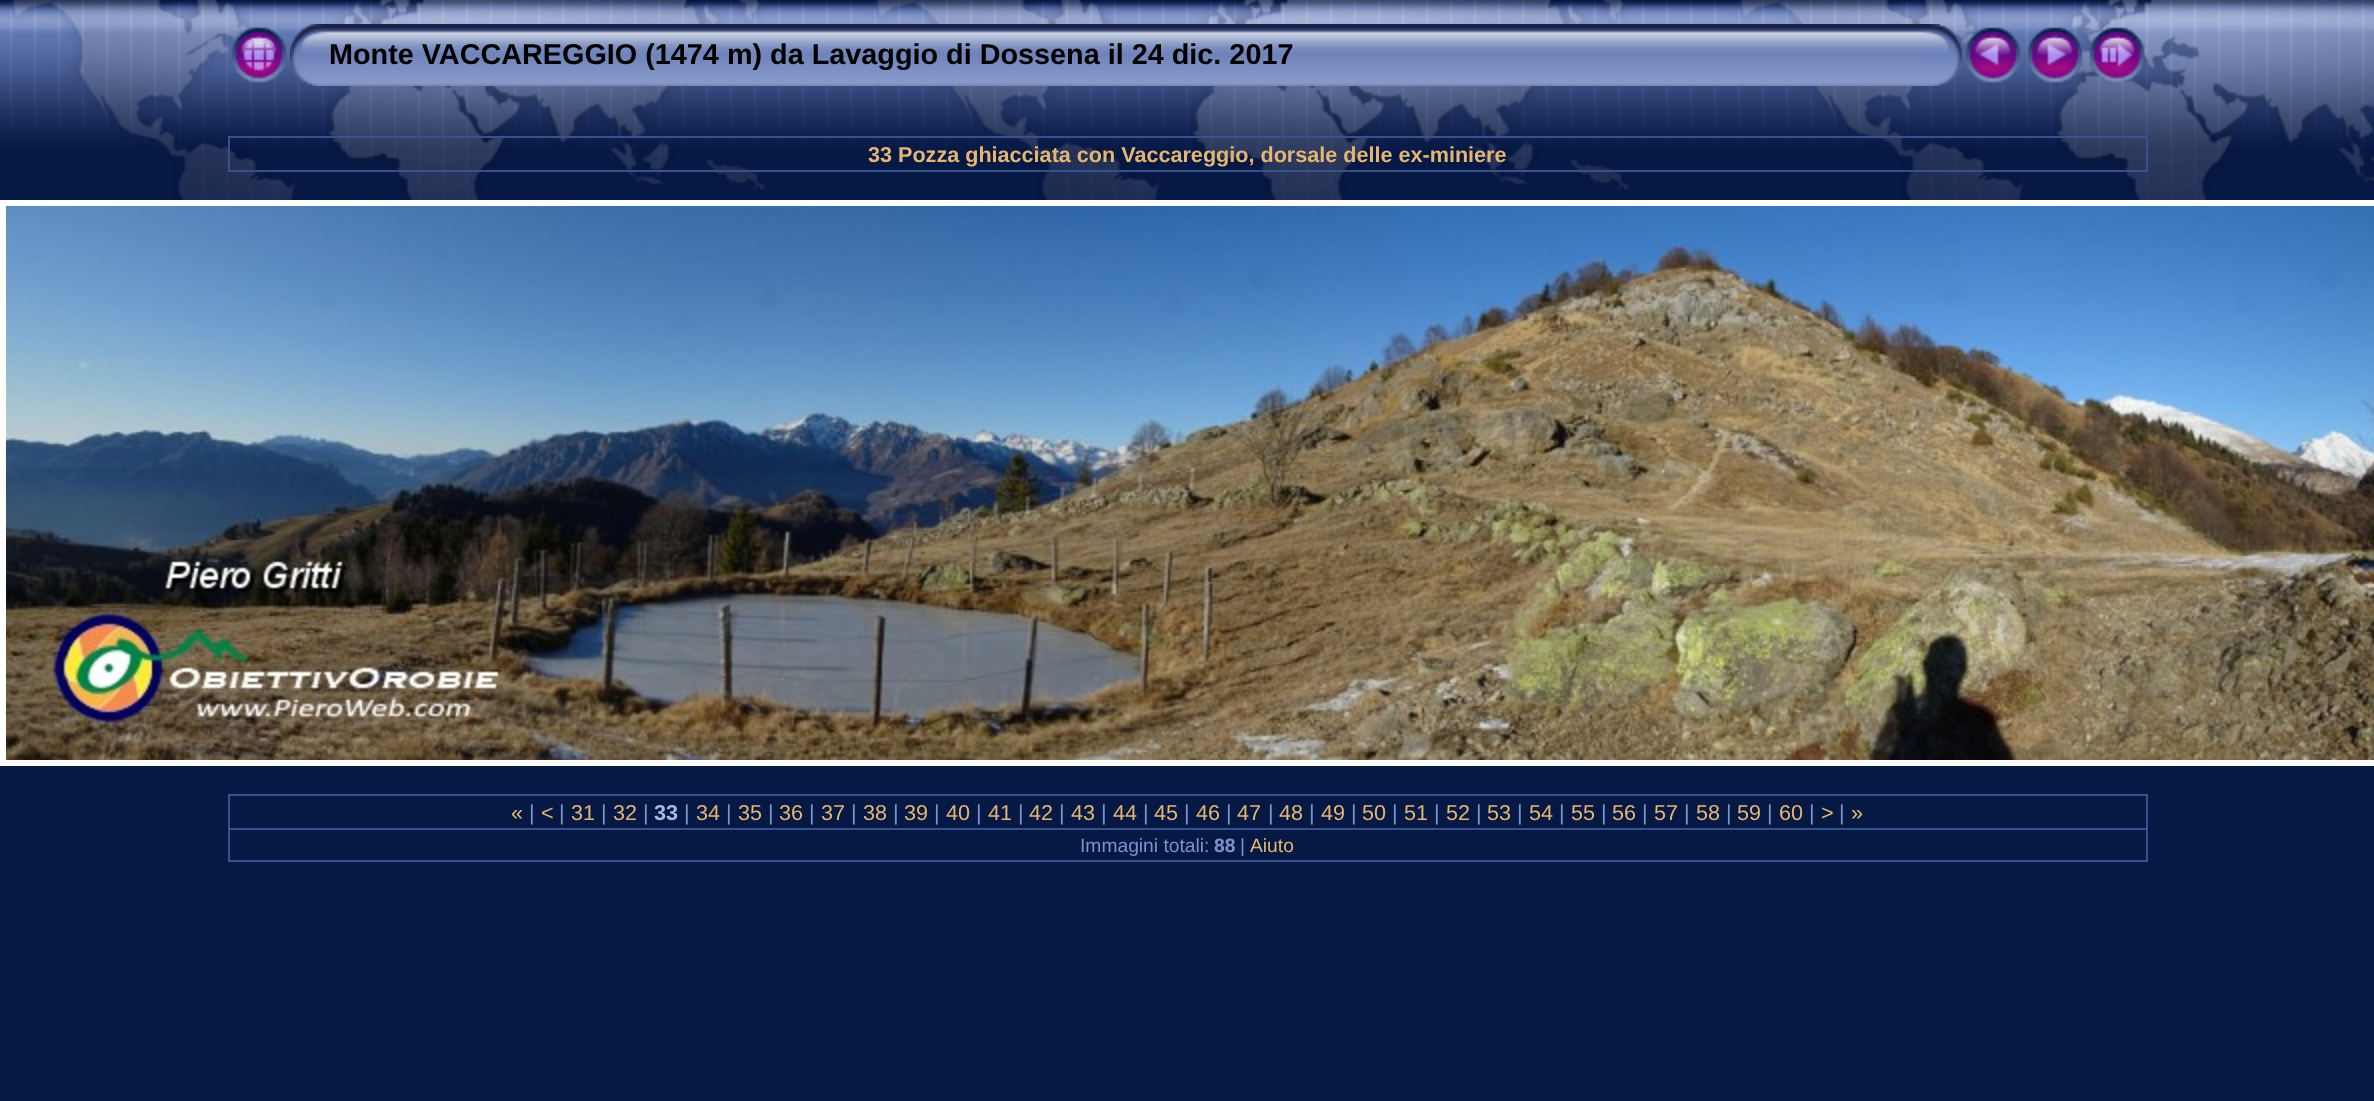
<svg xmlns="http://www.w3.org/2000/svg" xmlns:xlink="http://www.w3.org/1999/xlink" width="2374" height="1101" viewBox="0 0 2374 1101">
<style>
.cls-1{font:bold 28.8px Liberation Sans;fill:#000000}
.cls-2{font:bold 21.6px Liberation Sans;fill:#e5b673}
.cls-3{font:21.6px Liberation Sans;fill:#e5b673}
.cls-4{font:21.6px Liberation Sans;fill:#7e93cc}
.cls-5{font:bold 21.6px Liberation Sans;fill:#a9bae7}
.cls-6{font:19.25px Liberation Sans;fill:#7e93cc}
.cls-7{font:bold 19.25px Liberation Sans;fill:#7e93cc}
.cls-8{font:19.25px Liberation Sans;fill:#e5b673}
</style>
<rect width="100%" height="100%" fill="#061844"/>
<image xlink:href="image0.png" x="0" y="0" width="2374" height="200"/>
<image xlink:href="image1.png" x="231" y="27" width="56" height="56"/>
<image xlink:href="image2.png" x="290" y="24" width="40" height="62"/>
<image xlink:href="image3.png" x="330" y="24" width="1592" height="62"/>
<image xlink:href="image4.png" x="1922" y="24" width="40" height="62"/>
<image xlink:href="image5.png" x="1965" y="27" width="56" height="56"/>
<image xlink:href="image6.png" x="2027" y="27" width="56" height="56"/>
<image xlink:href="image7.png" x="2089" y="27" width="56" height="56"/>
<rect fill="#38518c" x="228" y="136" width="1920" height="2"/>
<rect fill="#38518c" x="2146" y="136" width="2" height="36"/>
<rect fill="#38518c" x="228" y="170" width="1920" height="2"/>
<rect fill="#38518c" x="228" y="136" width="2" height="36"/>
<rect fill="none" stroke="#ffffff" stroke-width="6" x="3" y="203" width="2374" height="560"/>
<image xlink:href="image8.png" x="6" y="206" width="2368" height="554"/>
<rect fill="#38518c" x="228" y="794" width="1920" height="2"/>
<rect fill="#38518c" x="228" y="828" width="1920" height="2"/>
<rect fill="#38518c" x="2146" y="828" width="2" height="34"/>
<rect fill="#38518c" x="2146" y="794" width="2" height="36"/>
<rect fill="#38518c" x="228" y="860" width="1920" height="2"/>
<rect fill="#38518c" x="228" y="828" width="2" height="34"/>
<rect fill="#38518c" x="228" y="794" width="2" height="36"/>
<text class="cls-1" x="329" y="64">Monte VACCAREGGIO (1474 m) da Lavaggio di Dossena il 24 dic. 2017</text>
<text class="cls-2" x="868" y="162">33 Pozza ghiacciata con Vaccareggio, dorsale delle ex-miniere</text>
<text class="cls-3" x="511" y="820">«</text>
<text class="cls-4" x="529" y="820">|</text>
<text class="cls-3" x="541" y="820">&lt;</text>
<text class="cls-4" x="559" y="820">|</text>
<text class="cls-3" x="571" y="820">31</text>
<text class="cls-4" x="601" y="820">|</text>
<text class="cls-3" x="613" y="820">32</text>
<text class="cls-4" x="643" y="820">|</text>
<text class="cls-5" x="654" y="820">33</text>
<text class="cls-4" x="684" y="820">|</text>
<text class="cls-3" x="696" y="820">34</text>
<text class="cls-4" x="726" y="820">|</text>
<text class="cls-3" x="738" y="820">35</text>
<text class="cls-4" x="768" y="820">|</text>
<text class="cls-3" x="779" y="820">36</text>
<text class="cls-4" x="809" y="820">|</text>
<text class="cls-3" x="821" y="820">37</text>
<text class="cls-4" x="851" y="820">|</text>
<text class="cls-3" x="863" y="820">38</text>
<text class="cls-4" x="893" y="820">|</text>
<text class="cls-3" x="904" y="820">39</text>
<text class="cls-4" x="934" y="820">|</text>
<text class="cls-3" x="946" y="820">40</text>
<text class="cls-4" x="976" y="820">|</text>
<text class="cls-3" x="988" y="820">41</text>
<text class="cls-4" x="1018" y="820">|</text>
<text class="cls-3" x="1029" y="820">42</text>
<text class="cls-4" x="1059" y="820">|</text>
<text class="cls-3" x="1071" y="820">43</text>
<text class="cls-4" x="1101" y="820">|</text>
<text class="cls-3" x="1113" y="820">44</text>
<text class="cls-4" x="1143" y="820">|</text>
<text class="cls-3" x="1154" y="820">45</text>
<text class="cls-4" x="1184" y="820">|</text>
<text class="cls-3" x="1196" y="820">46</text>
<text class="cls-4" x="1226" y="820">|</text>
<text class="cls-3" x="1237" y="820">47</text>
<text class="cls-4" x="1268" y="820">|</text>
<text class="cls-3" x="1279" y="820">48</text>
<text class="cls-4" x="1309" y="820">|</text>
<text class="cls-3" x="1321" y="820">49</text>
<text class="cls-4" x="1351" y="820">|</text>
<text class="cls-3" x="1362" y="820">50</text>
<text class="cls-4" x="1392" y="820">|</text>
<text class="cls-3" x="1404" y="820">51</text>
<text class="cls-4" x="1434" y="820">|</text>
<text class="cls-3" x="1446" y="820">52</text>
<text class="cls-4" x="1476" y="820">|</text>
<text class="cls-3" x="1487" y="820">53</text>
<text class="cls-4" x="1517" y="820">|</text>
<text class="cls-3" x="1529" y="820">54</text>
<text class="cls-4" x="1559" y="820">|</text>
<text class="cls-3" x="1571" y="820">55</text>
<text class="cls-4" x="1601" y="820">|</text>
<text class="cls-3" x="1612" y="820">56</text>
<text class="cls-4" x="1642" y="820">|</text>
<text class="cls-3" x="1654" y="820">57</text>
<text class="cls-4" x="1684" y="820">|</text>
<text class="cls-3" x="1696" y="820">58</text>
<text class="cls-4" x="1726" y="820">|</text>
<text class="cls-3" x="1737" y="820">59</text>
<text class="cls-4" x="1767" y="820">|</text>
<text class="cls-3" x="1779" y="820">60</text>
<text class="cls-4" x="1809" y="820">|</text>
<text class="cls-3" x="1821" y="820">&gt;</text>
<text class="cls-4" x="1839" y="820">|</text>
<text class="cls-3" x="1851" y="820">»</text>
<text class="cls-6" x="1080" y="852">Immagini totali:</text>
<text class="cls-7" x="1214" y="852">88</text>
<text class="cls-6" x="1240" y="852">|</text>
<text class="cls-8" x="1250" y="852">Aiuto</text>
</svg>
